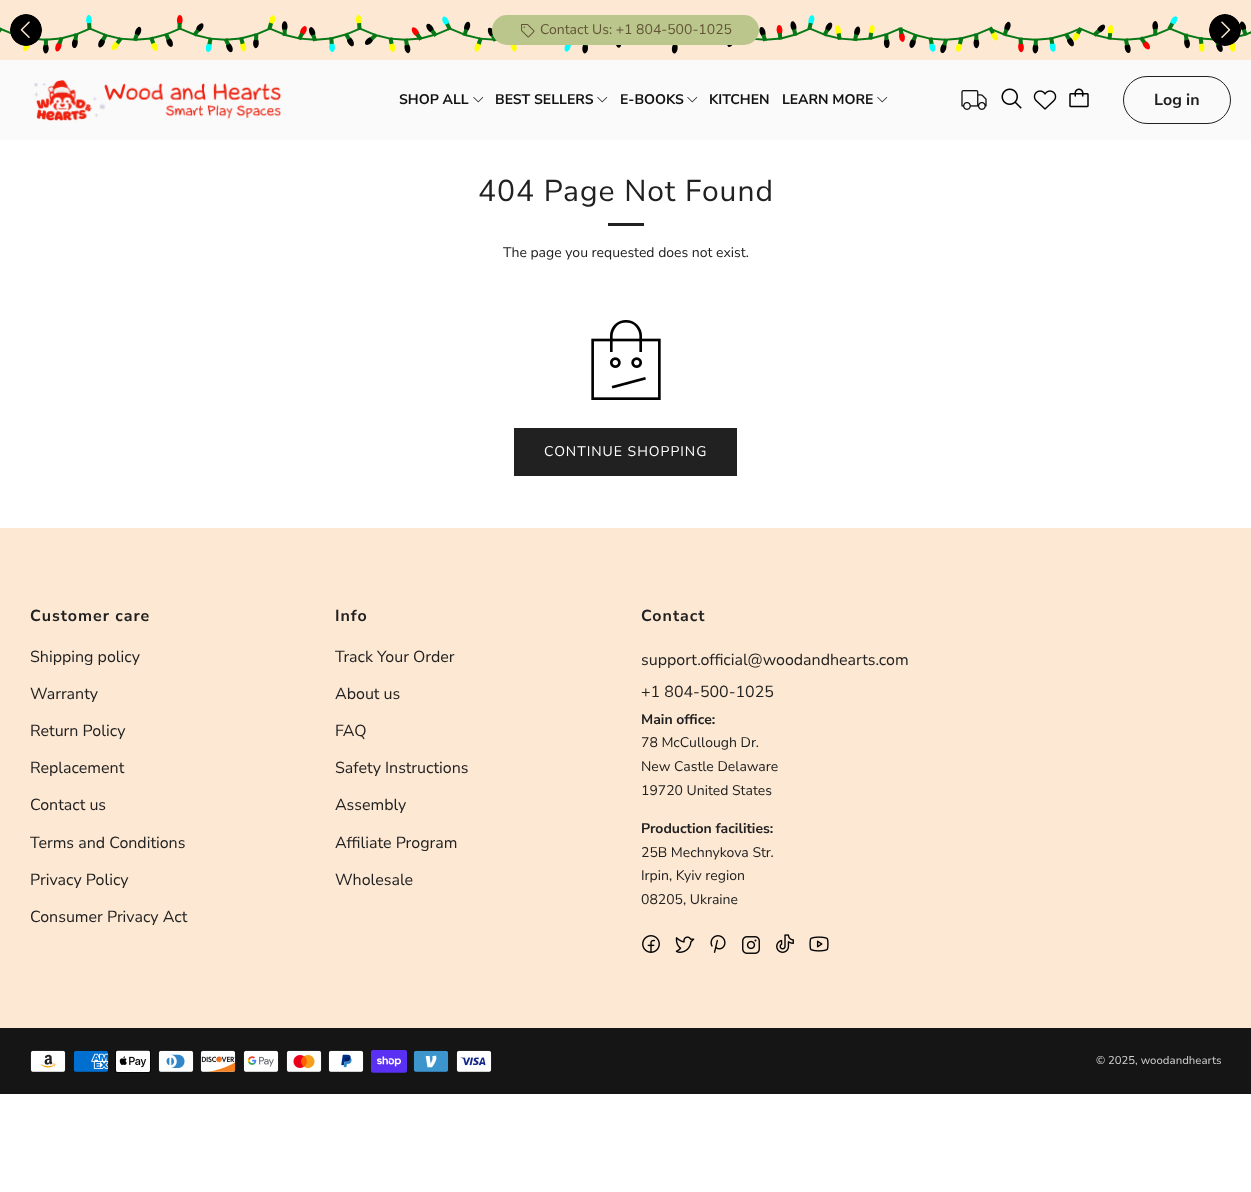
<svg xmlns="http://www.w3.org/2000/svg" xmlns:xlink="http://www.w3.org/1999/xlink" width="1251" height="1192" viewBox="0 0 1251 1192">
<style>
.cls-1{font:14px Nunito Sans;fill:#615435}
.cls-2{font:bold 14px Nunito Sans;fill:#111111}
.cls-3{font:bold 16px Nunito Sans;fill:#212121}
.cls-4{font:30px Nunito Sans;letter-spacing:1px;fill:#212121}
.cls-5{font:14px Nunito Sans;fill:#212121}
.cls-6{font:14px Nunito Sans;letter-spacing:1px;fill:#ffffff}
.cls-7{font:bold 16px Nunito Sans;letter-spacing:1px;fill:#212121}
.cls-8{font:16px Nunito Sans;fill:#212121}
.cls-9{font:bold 14px Nunito Sans;fill:#212121}
.cls-10{font:11.25px 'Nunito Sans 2';fill:#d0d0d0}
</style>
<rect width="100%" height="100%" fill="#ffffff"/>
<rect fill="#fce8d3" x="0" y="0" width="1251" height="60"/>
<image xlink:href="image0.png" x="0" y="15" width="1251" height="39"/>
<image xlink:href="image1.png" x="10" y="14" width="32" height="32"/>
<rect fill="#bbc68d" x="492" y="15" width="267" height="30" rx="15"/>
<image xlink:href="image2.png" x="521" y="24" width="14" height="14"/>
<image xlink:href="image3.png" x="1209" y="14" width="32" height="32"/>
<rect fill="#fafafa" x="0" y="60" width="1251" height="80"/>
<image xlink:href="image4.png" x="34" y="80" width="248" height="41"/>
<image xlink:href="image5.png" x="473" y="97" width="11" height="6"/>
<image xlink:href="image5.png" x="597" y="97" width="11" height="6"/>
<image xlink:href="image5.png" x="687" y="97" width="11" height="6"/>
<image xlink:href="image5.png" x="877" y="97" width="11" height="6"/>
<image xlink:href="image6.png" x="961" y="90" width="26" height="20"/>
<image xlink:href="image7.png" x="1001" y="88" width="21" height="21"/>
<image xlink:href="image8.png" x="1033" y="90" width="24" height="20"/>
<image xlink:href="image9.png" x="1069" y="88" width="20" height="20"/>
<rect fill="none" stroke="#212121" x="1123.5" y="76.5" width="107" height="47" rx="23.5"/>
<rect fill="#212121" x="608" y="223" width="36" height="3"/>
<image xlink:href="image10.png" x="591" y="320" width="70" height="80"/>
<rect fill="#212121" x="514" y="428" width="223" height="48"/>
<rect fill="#fce8d3" x="0" y="528" width="1251" height="500"/>
<image xlink:href="image11.png" x="642" y="935" width="18" height="18"/>
<image xlink:href="image12.png" x="675" y="936" width="20" height="17"/>
<image xlink:href="image13.png" x="710" y="935" width="16" height="18"/>
<image xlink:href="image14.png" x="742" y="936" width="18" height="18"/>
<image xlink:href="image15.png" x="776" y="934" width="18" height="19"/>
<image xlink:href="image16.png" x="809" y="936" width="20" height="16"/>
<rect fill="#151515" x="0" y="1028" width="1251" height="66"/>
<image xlink:href="image17.png" x="30" y="1050" width="36" height="22"/>
<image xlink:href="image18.png" x="73" y="1050" width="36" height="22"/>
<image xlink:href="image19.png" x="115" y="1050" width="36" height="23"/>
<image xlink:href="image20.png" x="158" y="1050" width="36" height="22"/>
<image xlink:href="image21.png" x="200" y="1050" width="36" height="22"/>
<image xlink:href="image22.png" x="243" y="1050" width="36" height="22"/>
<image xlink:href="image23.png" x="286" y="1050" width="36" height="22"/>
<image xlink:href="image24.png" x="328" y="1050" width="36" height="22"/>
<image xlink:href="image25.png" x="371" y="1050" width="36" height="23"/>
<image xlink:href="image26.png" x="413" y="1050" width="36" height="22"/>
<image xlink:href="image27.png" x="456" y="1050" width="36" height="22"/>
<text class="cls-1" x="540" y="34">Contact Us: +1 804-500-1025</text>
<text class="cls-2" x="399" y="104">SHOP ALL</text>
<text class="cls-2" x="495" y="104">BEST SELLERS</text>
<text class="cls-2" x="620" y="104">E-BOOKS</text>
<text class="cls-2" x="709" y="104">KITCHEN</text>
<text class="cls-2" x="782" y="104">LEARN MORE</text>
<text class="cls-3" x="1154" y="105">Log in</text>
<text class="cls-4" x="478" y="201">404 Page Not Found</text>
<text class="cls-5" x="503" y="257">The page you requested does not exist.</text>
<text class="cls-6" x="544" y="456">CONTINUE SHOPPING</text>
<text class="cls-7" x="30" y="621">Customer care</text>
<text class="cls-8" x="30" y="662">Shipping policy</text>
<text class="cls-8" x="30" y="699">Warranty</text>
<text class="cls-8" x="30" y="736">Return Policy</text>
<text class="cls-8" x="30" y="773">Replacement</text>
<text class="cls-8" x="30" y="810">Contact us</text>
<text class="cls-8" x="30" y="848">Terms and Conditions</text>
<text class="cls-8" x="30" y="885">Privacy Policy</text>
<text class="cls-8" x="30" y="922">Consumer Privacy Act</text>
<text class="cls-7" x="335" y="621">Info</text>
<text class="cls-8" x="335" y="662">Track Your Order</text>
<text class="cls-8" x="335" y="699">About us</text>
<text class="cls-8" x="335" y="736">FAQ</text>
<text class="cls-8" x="335" y="773">Safety Instructions</text>
<text class="cls-8" x="335" y="810">Assembly</text>
<text class="cls-8" x="335" y="848">Affiliate Program</text>
<text class="cls-8" x="335" y="885">Wholesale</text>
<text class="cls-7" x="641" y="621">Contact</text>
<text class="cls-8" x="641" y="665">support.official@woodandhearts.com</text>
<text class="cls-8" x="641" y="697">+1 804-500-1025</text>
<text class="cls-9" x="641" y="724">Main office:</text>
<text class="cls-5"><tspan x="641" y="747">78 McCullough Dr.</tspan><tspan x="641" y="771">New Castle Delaware</tspan><tspan x="641" y="795">19720 United States</tspan></text>
<text class="cls-9" x="641" y="833">Production facilities:</text>
<text class="cls-5"><tspan x="641" y="857">25B Mechnykova Str.</tspan><tspan x="641" y="880">Irpin, Kyiv region</tspan><tspan x="641" y="904">08205, Ukraine</tspan></text>
<text class="cls-10" x="1096" y="1064">© 2025, woodandhearts</text>
</svg>
